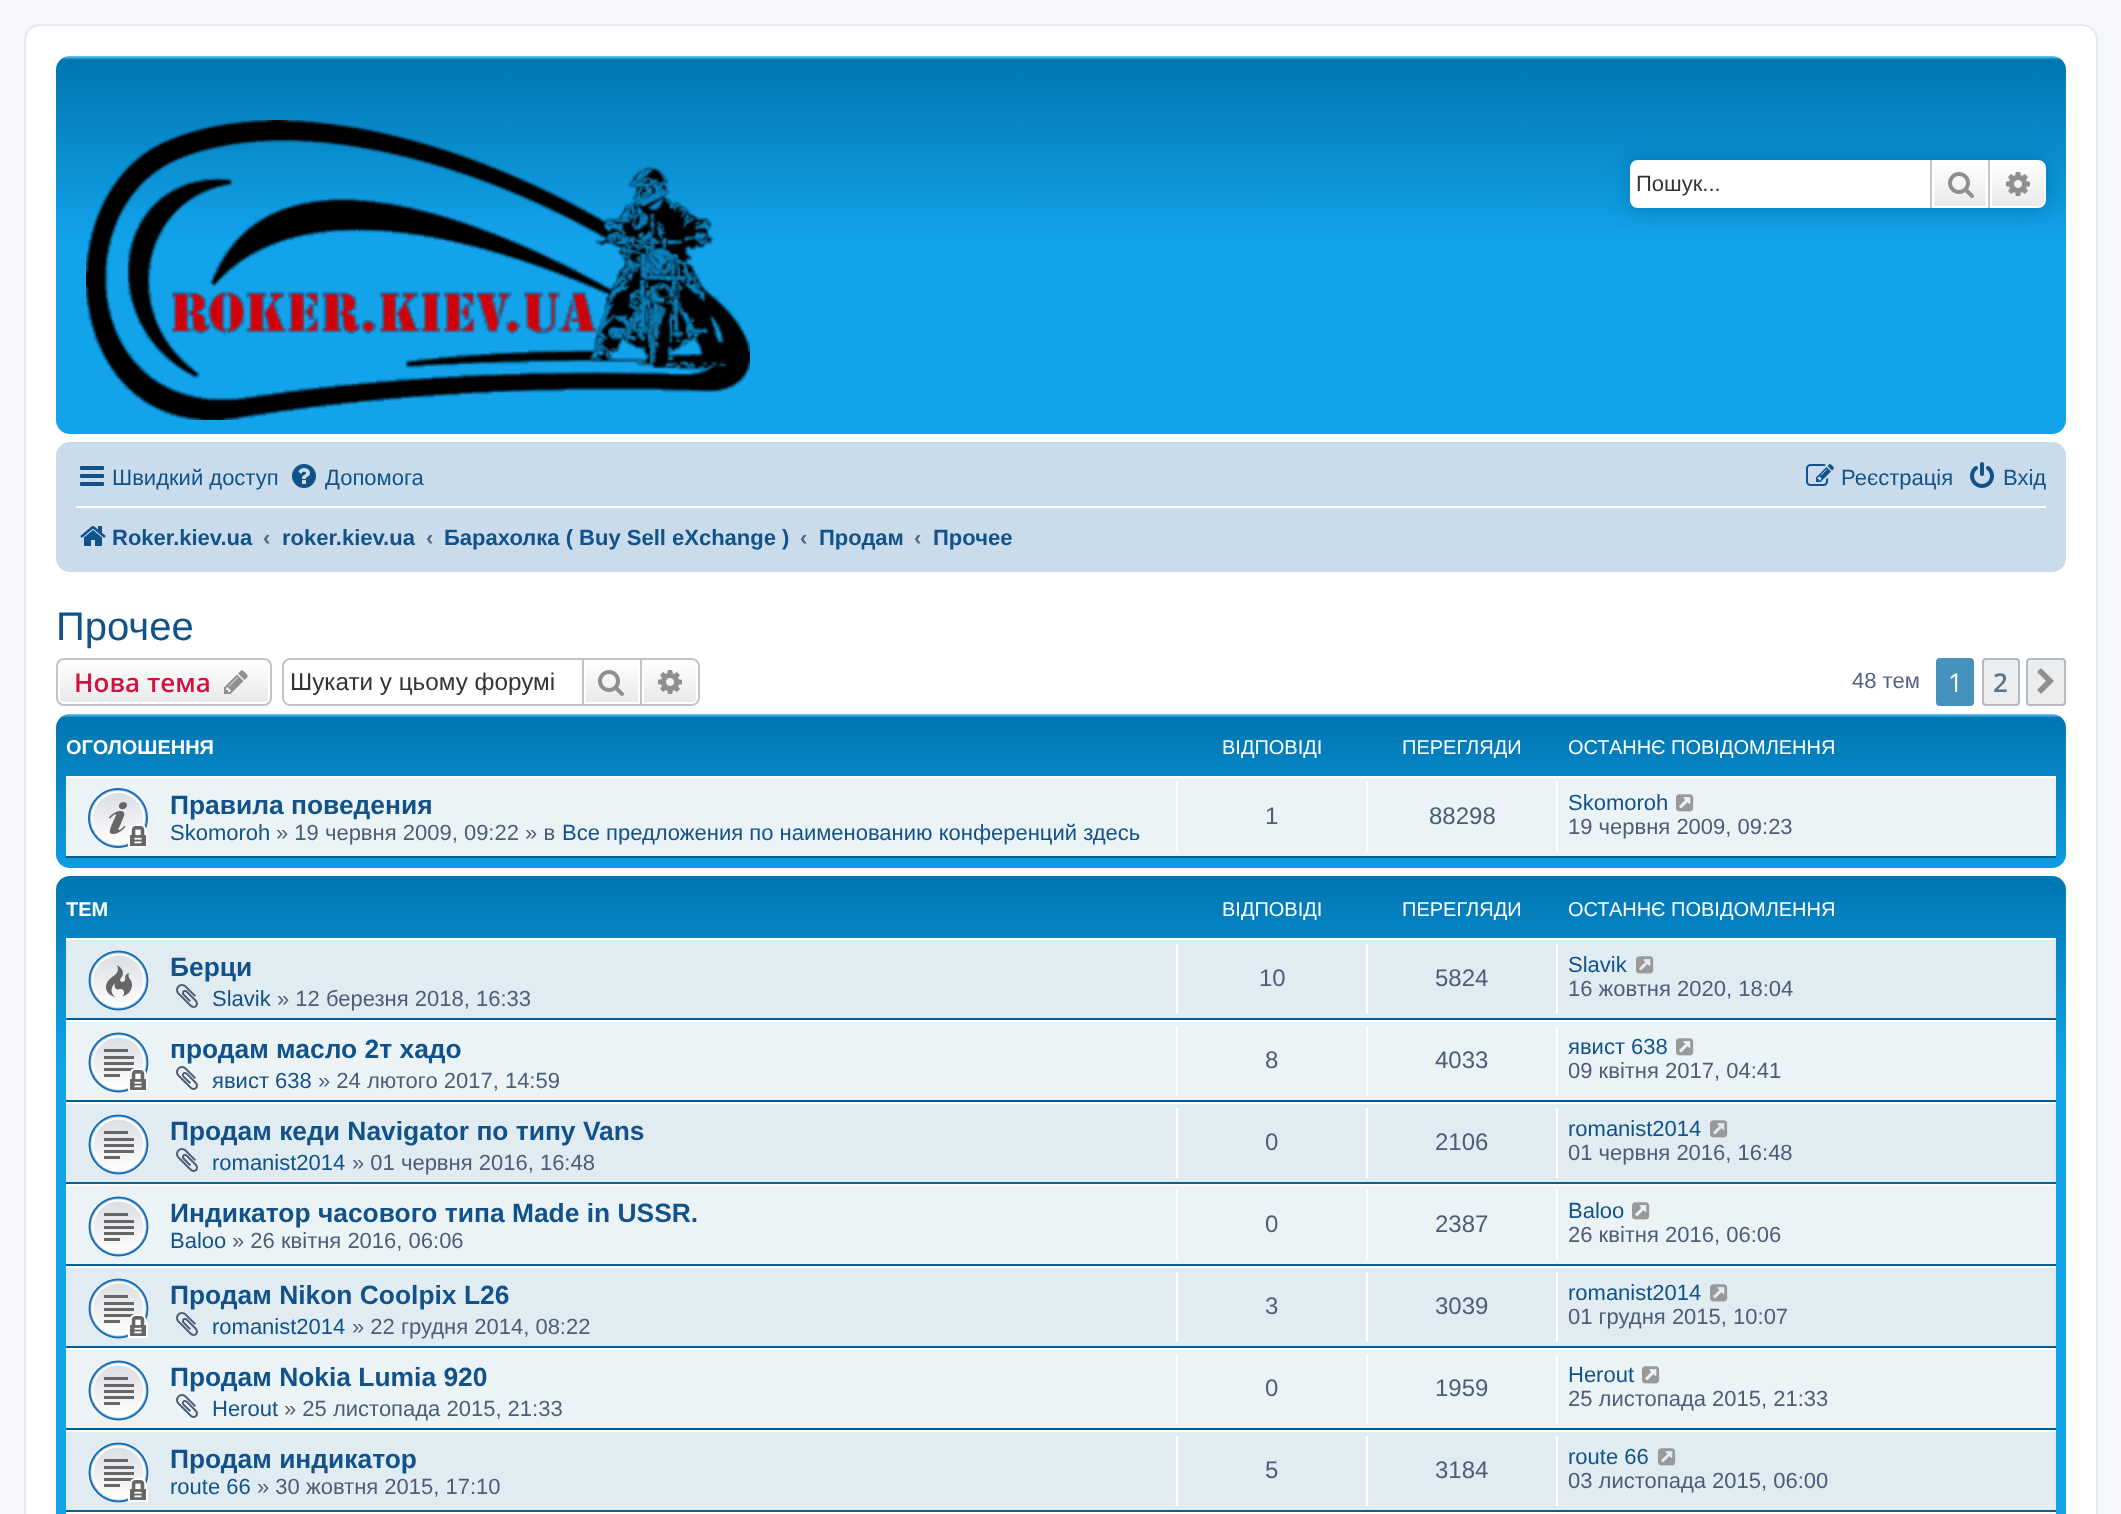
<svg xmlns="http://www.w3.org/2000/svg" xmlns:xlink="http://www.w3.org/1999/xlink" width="2121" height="1514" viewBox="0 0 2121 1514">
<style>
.cls-1{font:22px Liberation Sans;fill:#333333}
.cls-2{font:22px Liberation Sans;fill:#105289}
.cls-3{font:bold 22px Liberation Sans;fill:#105289}
.cls-4{font:bold 22px Liberation Sans;fill:#536482}
.cls-5{font:40px Liberation Sans;fill:#105289}
.cls-6{font:600 26px Open Sans;fill:#d31141}
.cls-7{font:24.25px Liberation Sans;fill:#333333}
.cls-8{font:22px Liberation Sans;fill:#536482}
.cls-9{font:26px Open Sans;fill:#ffffff}
.cls-10{font:600 26px Open Sans;fill:#5c758c}
.cls-11{font:bold 20px Liberation Sans;fill:#ffffff}
.cls-12{font:20px Liberation Sans;fill:#ffffff}
.cls-13{font:bold 26.4px Liberation Sans;fill:#105289}
.cls-14{font:22px Liberation Sans;fill:#4c5d77}
.cls-15{font:24px Liberation Sans;fill:#4c5d77}
</style>
<defs>
<linearGradient id="g1" gradientUnits="userSpaceOnUse" x1="1061" y1="56" x2="1061" y2="434"><stop offset="0" stop-color="#6aceff"/><stop offset="0.01" stop-color="#0076b1"/><stop offset="0.49" stop-color="#12a3eb"/><stop offset="1" stop-color="#12a3eb"/></linearGradient>
<linearGradient id="g2" gradientUnits="userSpaceOnUse" x1="1960" y1="160" x2="1960" y2="208"><stop offset="0" stop-color="#ffffff"/><stop offset="1" stop-color="#e9e9e9"/></linearGradient>
<linearGradient id="g3" gradientUnits="userSpaceOnUse" x1="2018" y1="160" x2="2018" y2="208"><stop offset="0" stop-color="#ffffff"/><stop offset="1" stop-color="#e9e9e9"/></linearGradient>
<clipPath id="clip1"><rect x="56" y="658" width="216" height="48" rx="8"/></clipPath>
<linearGradient id="g4" gradientUnits="userSpaceOnUse" x1="164" y1="660" x2="164" y2="704"><stop offset="0" stop-color="#ffffff"/><stop offset="1" stop-color="#e9e9e9"/></linearGradient>
<linearGradient id="g5" gradientUnits="userSpaceOnUse" x1="612" y1="660" x2="612" y2="704"><stop offset="0" stop-color="#ffffff"/><stop offset="1" stop-color="#e9e9e9"/></linearGradient>
<linearGradient id="g6" gradientUnits="userSpaceOnUse" x1="670" y1="660" x2="670" y2="704"><stop offset="0" stop-color="#ffffff"/><stop offset="1" stop-color="#e9e9e9"/></linearGradient>
<linearGradient id="g7" gradientUnits="userSpaceOnUse" x1="1061" y1="714" x2="1061" y2="898"><stop offset="0" stop-color="#6aceff"/><stop offset="0.02" stop-color="#0076b1"/><stop offset="1" stop-color="#12a3eb"/></linearGradient>
<linearGradient id="g8" gradientUnits="userSpaceOnUse" x1="1061" y1="876" x2="1061" y2="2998"><stop offset="0" stop-color="#6aceff"/><stop offset="0" stop-color="#0076b1"/><stop offset="0.09" stop-color="#12a3eb"/><stop offset="1" stop-color="#12a3eb"/></linearGradient>
</defs>
<rect width="100%" height="100%" fill="#f5f7fa"/>
<rect fill="#ffffff" stroke="#e6e9ed" stroke-width="2" x="25" y="25" width="2072" height="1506" rx="15"/>
<rect fill="url(#g1)" x="56" y="56" width="2010" height="378" rx="14"/>
<image xlink:href="image0.png" x="86" y="120" width="664" height="300"/>
<rect fill="#0075b0" filter="blur(10px)" x="1630" y="160" width="416" height="48" rx="8"/>
<path fill="#ffffff" d="M1638 160H1930V208H1638C1633.5 208 1630 204.5 1630 200V168C1630 163.5 1633.5 160 1638 160Z"/>
<rect fill="url(#g2)" x="1934" y="162" width="52" height="44"/>
<rect fill="none" stroke="#ffffff" stroke-width="2" x="1933" y="161" width="54" height="46"/>
<rect fill="#c7c3bf" x="1988" y="160" width="2" height="48"/>
<rect fill="#c7c3bf" x="1930" y="160" width="2" height="48"/>
<image xlink:href="image1.png" x="1948" y="172" width="26" height="26"/>
<path fill="url(#g3)" stroke="#ffffff" stroke-width="2" d="M1991 161H2038C2042 161 2045 164 2045 168V200C2045 204 2042 207 2038 207H1991Z"/>
<image xlink:href="image2.png" x="2006" y="172" width="24" height="24"/>
<rect fill="#cadceb" x="56" y="442" width="2010" height="130" rx="14"/>
<image xlink:href="image3.png" x="80" y="466" width="24" height="20"/>
<image xlink:href="image4.png" x="292" y="464" width="24" height="24"/>
<image xlink:href="image5.png" x="1806" y="464" width="28" height="22"/>
<image xlink:href="image6.png" x="1970" y="462" width="24" height="26"/>
<rect fill="#ffffff" x="76" y="506" width="1970" height="2"/>
<image xlink:href="image7.png" x="80" y="526" width="26" height="20"/>
<g clip-path="url(#clip1)">
<rect fill="url(#g4)" x="56" y="660" width="216" height="44"/>
</g>
<rect fill="none" stroke="#ffffff" stroke-width="2" x="59" y="661" width="210" height="42" rx="5"/>
<rect fill="none" stroke="#c7c3bf" stroke-width="2" x="57" y="659" width="214" height="46" rx="7"/>
<image xlink:href="image8.png" x="224" y="670" width="24" height="24"/>
<path fill="#c7c3bf" fill-rule="evenodd" d="M290 658H582V706H290C286 706 282 702 282 698V666C282 662 286 658 290 658ZM290 660H582V704H290C287 704 284 701 284 698V666C284 663 287 660 290 660Z"/>
<rect fill="url(#g5)" x="586" y="665" width="52" height="37"/>
<rect fill="none" stroke="#c7c3bf" stroke-width="2" x="583" y="659" width="58" height="46"/>
<image xlink:href="image9.png" x="598" y="670" width="26" height="26"/>
<path fill="url(#g6)" stroke="#ffffff" stroke-width="2" d="M643 661H692C695 661 697 663 697 666V698C697 701 695 703 692 703H643Z"/>
<path fill="#c7c3bf" fill-rule="evenodd" d="M642 658H692C696 658 700 662 700 666V698C700 702 696 706 692 706H642ZM642 660H692C695 660 698 663 698 666V698C698 701 695 704 692 704H642Z"/>
<image xlink:href="image10.png" x="658" y="670" width="24" height="24"/>
<rect fill="#4692bf" stroke="#4692bf" stroke-width="2" x="1937" y="659" width="36" height="46" rx="3"/>
<rect fill="#ecedee" stroke="#b4bac0" stroke-width="2" x="1983" y="659" width="36" height="46" rx="3"/>
<rect fill="#ecedee" stroke="#b4bac0" stroke-width="2" x="2027" y="659" width="38" height="46" rx="3"/>
<image xlink:href="image11.png" x="2037" y="668" width="17" height="26"/>
<rect fill="url(#g7)" x="56" y="714" width="2010" height="154" rx="14"/>
<rect fill="#ecf3f7" x="66" y="778" width="1990" height="78"/>
<rect fill="#ffffff" x="66" y="776" width="1990" height="2"/>
<rect fill="#00608f" x="66" y="856" width="1990" height="2"/>
<image xlink:href="image12.png" x="88" y="788" width="60" height="60"/>
<rect fill="#ffffff" x="1176" y="782" width="2" height="70"/>
<rect fill="#ffffff" x="1366" y="782" width="2" height="70"/>
<rect fill="#ffffff" x="1556" y="782" width="2" height="70"/>
<image xlink:href="image13.png" x="1676" y="794" width="18" height="18"/>
<rect fill="url(#g8)" x="56" y="876" width="2010" height="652" rx="14"/>
<rect fill="#e1ebf2" x="66" y="940" width="1990" height="78"/>
<rect fill="#ffffff" x="66" y="938" width="1990" height="2"/>
<rect fill="#00608f" x="66" y="1018" width="1990" height="2"/>
<image xlink:href="image14.png" x="88" y="950" width="61" height="61"/>
<image xlink:href="image15.png" x="176" y="984" width="22" height="24"/>
<rect fill="#ffffff" x="1176" y="944" width="2" height="70"/>
<rect fill="#ffffff" x="1366" y="944" width="2" height="70"/>
<rect fill="#ffffff" x="1556" y="944" width="2" height="70"/>
<image xlink:href="image16.png" x="1636" y="956" width="18" height="18"/>
<rect fill="#ecf3f7" x="66" y="1022" width="1990" height="78"/>
<rect fill="#ffffff" x="66" y="1020" width="1990" height="2"/>
<rect fill="#00608f" x="66" y="1100" width="1990" height="2"/>
<image xlink:href="image17.png" x="88" y="1032" width="61" height="61"/>
<image xlink:href="image18.png" x="176" y="1066" width="22" height="24"/>
<rect fill="#ffffff" x="1176" y="1026" width="2" height="70"/>
<rect fill="#ffffff" x="1366" y="1026" width="2" height="70"/>
<rect fill="#ffffff" x="1556" y="1026" width="2" height="70"/>
<image xlink:href="image13.png" x="1676" y="1038" width="18" height="18"/>
<rect fill="#e1ebf2" x="66" y="1104" width="1990" height="78"/>
<rect fill="#ffffff" x="66" y="1102" width="1990" height="2"/>
<rect fill="#00608f" x="66" y="1182" width="1990" height="2"/>
<image xlink:href="image19.png" x="88" y="1114" width="61" height="61"/>
<image xlink:href="image15.png" x="176" y="1148" width="22" height="24"/>
<rect fill="#ffffff" x="1176" y="1108" width="2" height="70"/>
<rect fill="#ffffff" x="1366" y="1108" width="2" height="70"/>
<rect fill="#ffffff" x="1556" y="1108" width="2" height="70"/>
<image xlink:href="image16.png" x="1710" y="1120" width="18" height="18"/>
<rect fill="#ecf3f7" x="66" y="1186" width="1990" height="78"/>
<rect fill="#ffffff" x="66" y="1184" width="1990" height="2"/>
<rect fill="#00608f" x="66" y="1264" width="1990" height="2"/>
<image xlink:href="image20.png" x="88" y="1196" width="61" height="61"/>
<rect fill="#ffffff" x="1176" y="1190" width="2" height="70"/>
<rect fill="#ffffff" x="1366" y="1190" width="2" height="70"/>
<rect fill="#ffffff" x="1556" y="1190" width="2" height="70"/>
<image xlink:href="image13.png" x="1632" y="1202" width="18" height="18"/>
<rect fill="#e1ebf2" x="66" y="1268" width="1990" height="78"/>
<rect fill="#ffffff" x="66" y="1266" width="1990" height="2"/>
<rect fill="#00608f" x="66" y="1346" width="1990" height="2"/>
<image xlink:href="image21.png" x="88" y="1278" width="61" height="61"/>
<image xlink:href="image15.png" x="176" y="1312" width="22" height="24"/>
<rect fill="#ffffff" x="1176" y="1272" width="2" height="70"/>
<rect fill="#ffffff" x="1366" y="1272" width="2" height="70"/>
<rect fill="#ffffff" x="1556" y="1272" width="2" height="70"/>
<image xlink:href="image16.png" x="1710" y="1284" width="18" height="18"/>
<rect fill="#ecf3f7" x="66" y="1350" width="1990" height="78"/>
<rect fill="#ffffff" x="66" y="1348" width="1990" height="2"/>
<rect fill="#00608f" x="66" y="1428" width="1990" height="2"/>
<image xlink:href="image20.png" x="88" y="1360" width="61" height="61"/>
<image xlink:href="image18.png" x="176" y="1394" width="22" height="24"/>
<rect fill="#ffffff" x="1176" y="1354" width="2" height="70"/>
<rect fill="#ffffff" x="1366" y="1354" width="2" height="70"/>
<rect fill="#ffffff" x="1556" y="1354" width="2" height="70"/>
<image xlink:href="image13.png" x="1642" y="1366" width="18" height="18"/>
<rect fill="#e1ebf2" x="66" y="1432" width="1990" height="78"/>
<rect fill="#ffffff" x="66" y="1430" width="1990" height="2"/>
<rect fill="#00608f" x="66" y="1510" width="1990" height="2"/>
<image xlink:href="image21.png" x="88" y="1442" width="61" height="61"/>
<rect fill="#ffffff" x="1176" y="1436" width="2" height="70"/>
<rect fill="#ffffff" x="1366" y="1436" width="2" height="70"/>
<rect fill="#ffffff" x="1556" y="1436" width="2" height="70"/>
<image xlink:href="image16.png" x="1658" y="1448" width="18" height="18"/>
<rect fill="#ffffff" x="66" y="1512" width="1990" height="2"/>
<text class="cls-1" x="1636" y="191">Пошук...</text>
<text class="cls-2" x="112" y="485">Швидкий доступ</text>
<text class="cls-2" x="325" y="485">Допомога</text>
<text class="cls-2" x="1841" y="485">Реєстрація</text>
<text class="cls-2" x="2003" y="485">Вхід</text>
<text class="cls-3" x="112" y="545">Roker.kiev.ua</text>
<text class="cls-4" x="263" y="545">‹</text>
<text class="cls-3" x="282" y="545">roker.kiev.ua</text>
<text class="cls-4" x="426" y="545">‹</text>
<text class="cls-3" x="444" y="545">Барахолка ( Buy Sell eXchange )</text>
<text class="cls-4" x="800" y="545">‹</text>
<text class="cls-3" x="819" y="545">Продам</text>
<text class="cls-4" x="914" y="545">‹</text>
<text class="cls-3" x="933" y="545">Прочее</text>
<text class="cls-5" x="56" y="640">Прочее</text>
<text class="cls-6" x="74" y="692">Нова тема</text>
<text class="cls-7" x="290" y="690">Шукати у цьому форумі</text>
<text class="cls-8" x="1852" y="688">48 тем</text>
<text class="cls-9" x="1948" y="692">1</text>
<text class="cls-10" x="1993" y="692">2</text>
<text class="cls-11" x="66" y="754">ОГОЛОШЕННЯ</text>
<text class="cls-12" x="1222" y="754">ВІДПОВІДІ</text>
<text class="cls-12" x="1402" y="754">ПЕРЕГЛЯДИ</text>
<text class="cls-12" x="1568" y="754">ОСТАННЄ ПОВІДОМЛЕННЯ</text>
<text class="cls-13" x="170" y="814">Правила поведения</text>
<text class="cls-2" x="170" y="840">Skomoroh</text>
<text class="cls-14" x="276" y="840">» 19 червня 2009, 09:22 » в</text>
<text class="cls-2" x="562" y="840">Все предложения по наименованию конференций здесь</text>
<text class="cls-15" x="1265" y="824">1</text>
<text class="cls-15" x="1429" y="824">88298</text>
<text class="cls-2" x="1568" y="810">Skomoroh</text>
<text class="cls-14" x="1568" y="834">19 червня 2009, 09:23</text>
<text class="cls-11" x="66" y="916">ТЕМ</text>
<text class="cls-12" x="1222" y="916">ВІДПОВІДІ</text>
<text class="cls-12" x="1402" y="916">ПЕРЕГЛЯДИ</text>
<text class="cls-12" x="1568" y="916">ОСТАННЄ ПОВІДОМЛЕННЯ</text>
<text class="cls-13" x="170" y="976">Берци</text>
<text class="cls-2" x="212" y="1006">Slavik</text>
<text class="cls-14" x="277" y="1006">» 12 березня 2018, 16:33</text>
<text class="cls-15" x="1259" y="986">10</text>
<text class="cls-15" x="1435" y="986">5824</text>
<text class="cls-2" x="1568" y="972">Slavik</text>
<text class="cls-14" x="1568" y="996">16 жовтня 2020, 18:04</text>
<text class="cls-13" x="170" y="1058">продам масло 2т хадо</text>
<text class="cls-2" x="212" y="1088">явист 638</text>
<text class="cls-14" x="318" y="1088">» 24 лютого 2017, 14:59</text>
<text class="cls-15" x="1265" y="1068">8</text>
<text class="cls-15" x="1435" y="1068">4033</text>
<text class="cls-2" x="1568" y="1054">явист 638</text>
<text class="cls-14" x="1568" y="1078">09 квітня 2017, 04:41</text>
<text class="cls-13" x="170" y="1140">Продам кеди Navigator по типу Vans</text>
<text class="cls-2" x="212" y="1170">romanist2014</text>
<text class="cls-14" x="352" y="1170">» 01 червня 2016, 16:48</text>
<text class="cls-15" x="1265" y="1150">0</text>
<text class="cls-15" x="1435" y="1150">2106</text>
<text class="cls-2" x="1568" y="1136">romanist2014</text>
<text class="cls-14" x="1568" y="1160">01 червня 2016, 16:48</text>
<text class="cls-13" x="170" y="1222">Индикатор часового типа Made in USSR.</text>
<text class="cls-2" x="170" y="1248">Baloo</text>
<text class="cls-14" x="232" y="1248">» 26 квітня 2016, 06:06</text>
<text class="cls-15" x="1265" y="1232">0</text>
<text class="cls-15" x="1435" y="1232">2387</text>
<text class="cls-2" x="1568" y="1218">Baloo</text>
<text class="cls-14" x="1568" y="1242">26 квітня 2016, 06:06</text>
<text class="cls-13" x="170" y="1304">Продам Nikon Coolpix L26</text>
<text class="cls-2" x="212" y="1334">romanist2014</text>
<text class="cls-14" x="352" y="1334">» 22 грудня 2014, 08:22</text>
<text class="cls-15" x="1265" y="1314">3</text>
<text class="cls-15" x="1435" y="1314">3039</text>
<text class="cls-2" x="1568" y="1300">romanist2014</text>
<text class="cls-14" x="1568" y="1324">01 грудня 2015, 10:07</text>
<text class="cls-13" x="170" y="1386">Продам Nokia Lumia 920</text>
<text class="cls-2" x="212" y="1416">Herout</text>
<text class="cls-14" x="284" y="1416">» 25 листопада 2015, 21:33</text>
<text class="cls-15" x="1265" y="1396">0</text>
<text class="cls-15" x="1435" y="1396">1959</text>
<text class="cls-2" x="1568" y="1382">Herout</text>
<text class="cls-14" x="1568" y="1406">25 листопада 2015, 21:33</text>
<text class="cls-13" x="170" y="1468">Продам индикатор</text>
<text class="cls-2" x="170" y="1494">route 66</text>
<text class="cls-14" x="257" y="1494">» 30 жовтня 2015, 17:10</text>
<text class="cls-15" x="1265" y="1478">5</text>
<text class="cls-15" x="1435" y="1478">3184</text>
<text class="cls-2" x="1568" y="1464">route 66</text>
<text class="cls-14" x="1568" y="1488">03 листопада 2015, 06:00</text>
</svg>
